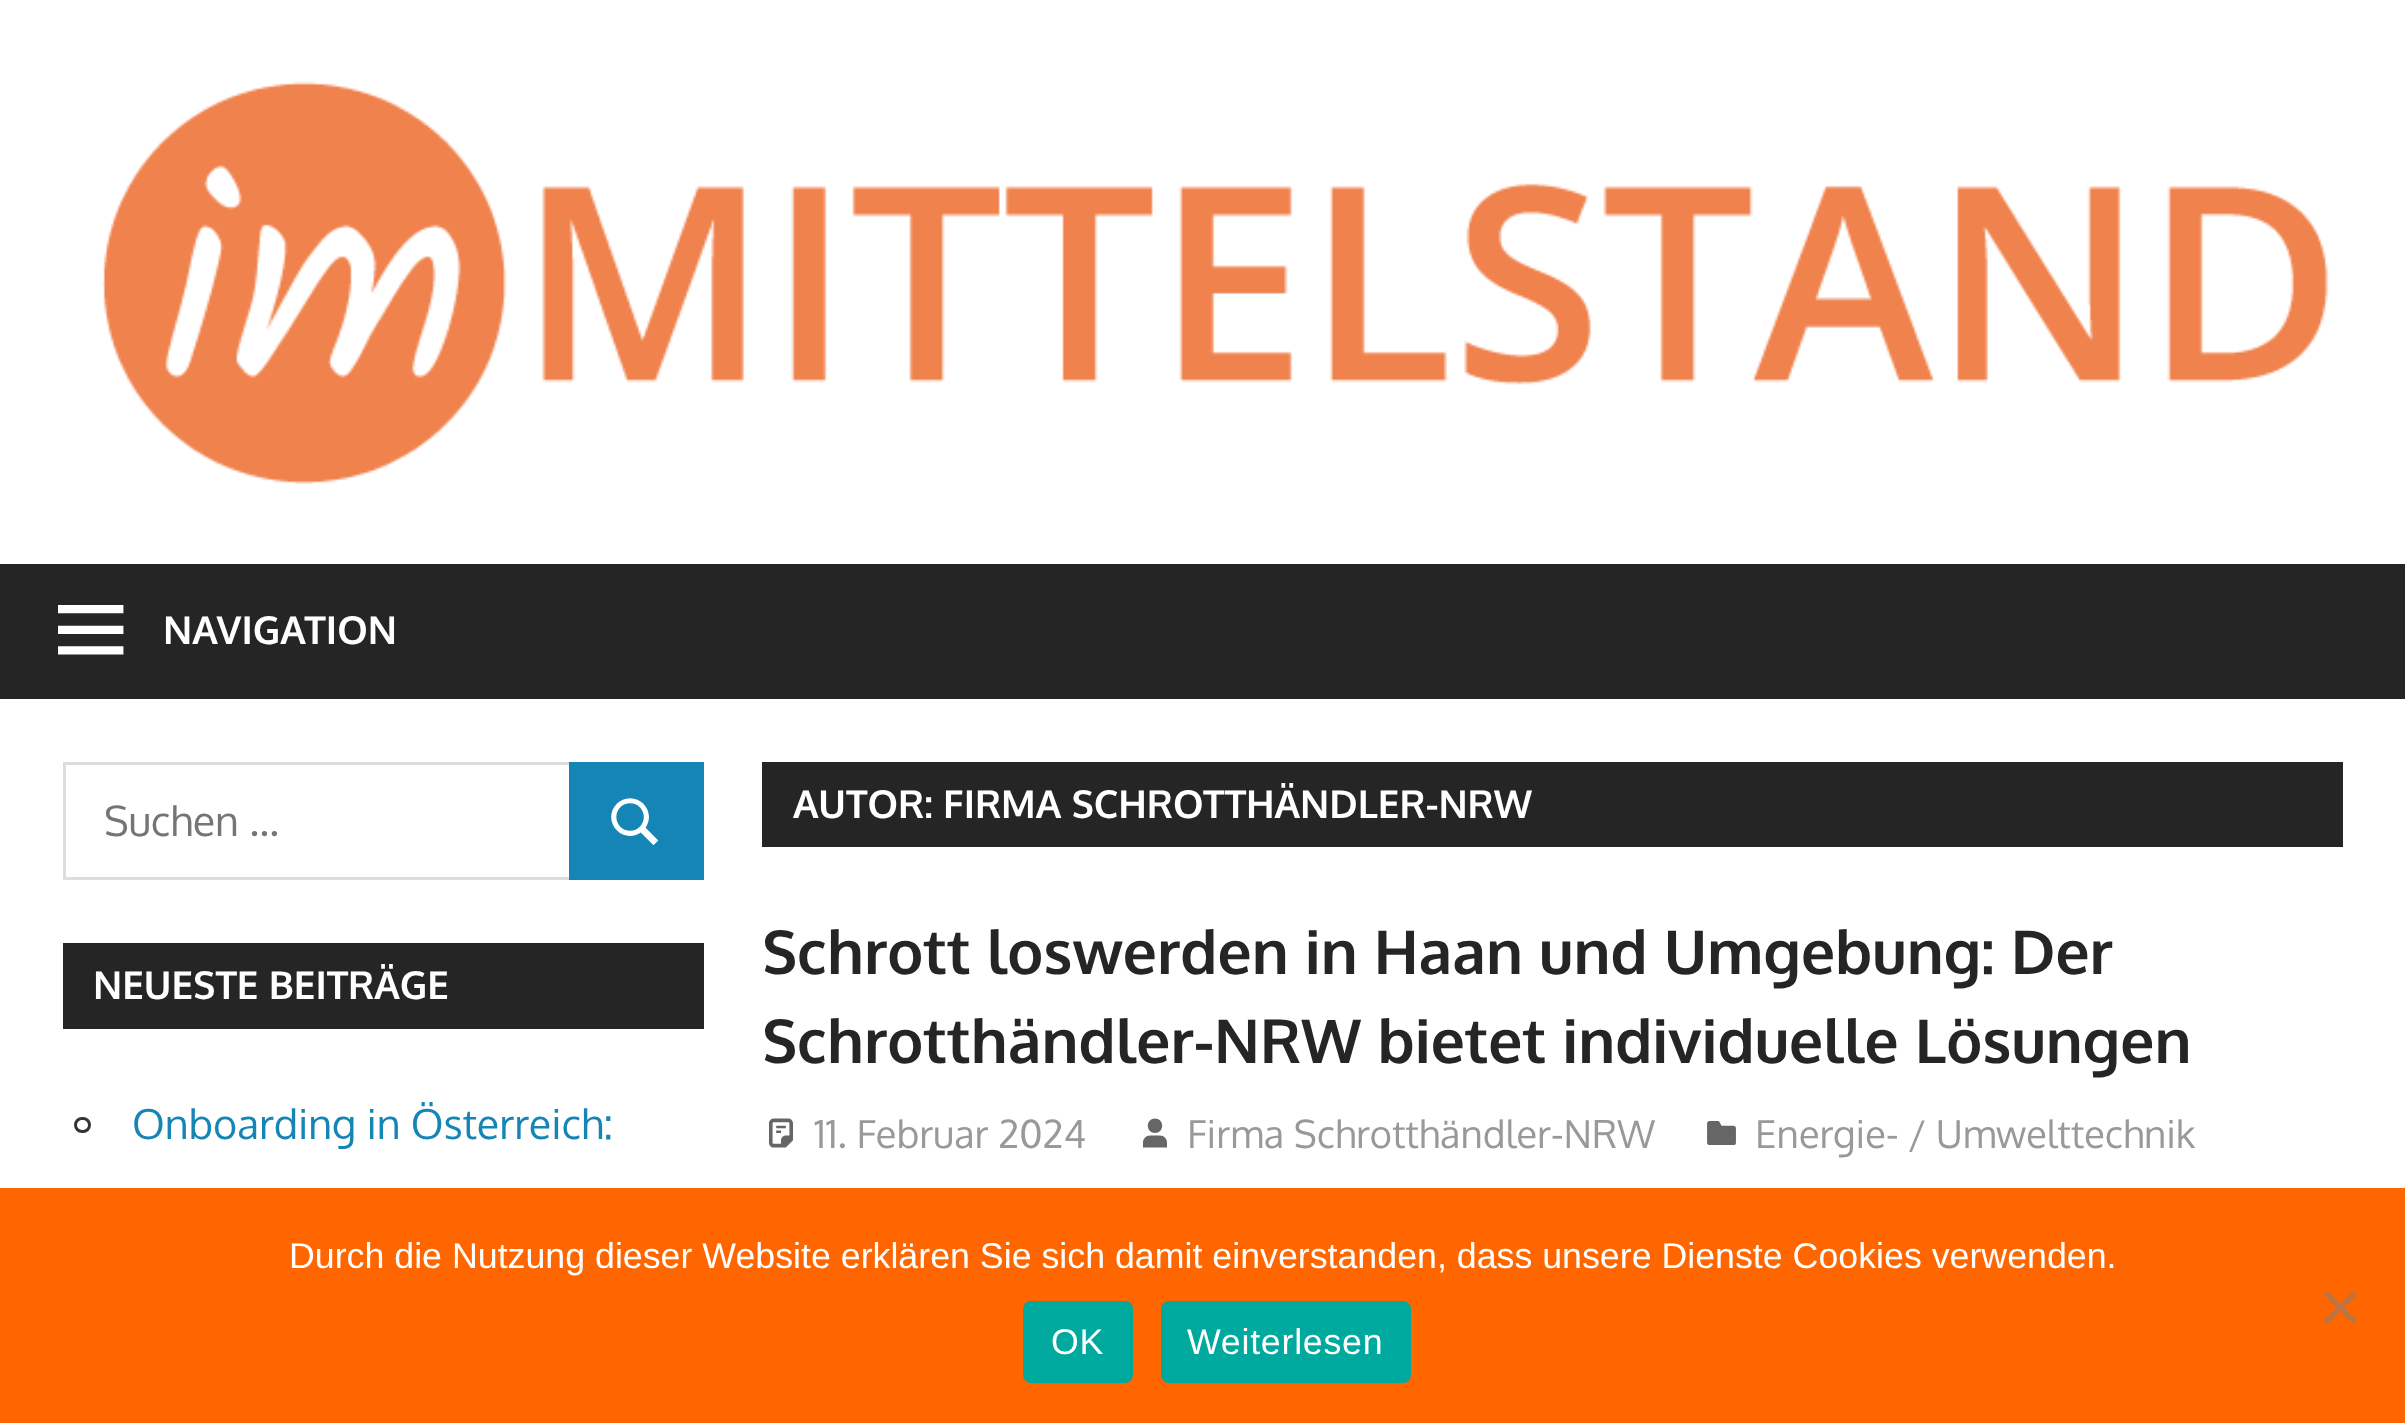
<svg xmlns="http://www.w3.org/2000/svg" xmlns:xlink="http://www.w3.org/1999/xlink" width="2405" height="1423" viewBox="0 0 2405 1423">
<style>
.cls-1{font:bold 38.5px Oxygen;fill:#ffffff}
.cls-2{font:41.25px Oxygen;fill:#757575}
.cls-3{font:41.25px Oxygen;fill:#1585b5}
.cls-4{font:bold 60.5px Oxygen;fill:#252525}
.cls-5{font:38.5px Oxygen;fill:#999999}
.cls-6{font:35.75px Liberation Sans;fill:#ffffff}
.cls-7{font:35.75px Liberation Sans;letter-spacing:0.75px;fill:#ffffff}
</style>
<rect width="100%" height="100%" fill="#ffffff"/>
<image xlink:href="image0.png" x="101" y="81" width="2228" height="403"/>
<rect fill="#252525" x="0" y="564" width="2405" height="135"/>
<image xlink:href="image1.png" x="58" y="605" width="66" height="50"/>
<rect fill="none" stroke="#dddddd" stroke-width="3" x="64.5" y="763.5" width="506" height="115"/>
<rect fill="#1585b5" x="569" y="762" width="135" height="118"/>
<image xlink:href="image2.png" x="611" y="798" width="48" height="48"/>
<rect fill="#252525" x="63" y="943" width="641" height="86"/>
<rect fill="none" stroke="#333333" stroke-width="3" x="75.5" y="1118.5" width="14" height="13" rx="6.5"/>
<rect fill="#252525" x="762" y="762" width="1581" height="85"/>
<image xlink:href="image3.png" x="768" y="1118" width="26" height="30"/>
<image xlink:href="image4.png" x="1143" y="1118" width="24" height="30"/>
<image xlink:href="image5.png" x="1707" y="1121" width="29" height="24"/>
<rect fill="#ff6600" x="0" y="1188" width="2405" height="235"/>
<path fill="#c07340" d="M2353 1291L2357 1295L2327.5 1324L2323.5 1320.5Z"/>
<path fill="#c07340" d="M2323.5 1295L2327.5 1291L2357 1320.5L2353 1324Z"/>
<rect fill="#00a99d" x="1023" y="1301" width="110" height="82" rx="8"/>
<rect fill="#00a99d" x="1161" y="1301" width="250" height="82" rx="8"/>
<text class="cls-1" x="163" y="644">NAVIGATION</text>
<text class="cls-2" x="104" y="836">Suchen …</text>
<text class="cls-1" x="93" y="999">NEUESTE BEITRÄGE</text>
<text class="cls-3" x="132" y="1139">Onboarding in Österreich:</text>
<text class="cls-1" x="793" y="818">AUTOR: FIRMA SCHROTTHÄNDLER-NRW</text>
<text class="cls-4"><tspan x="762" y="974">Schrott loswerden in Haan und Umgebung: Der</tspan><tspan x="762" y="1063">Schrotthändler-NRW bietet individuelle Lösungen</tspan></text>
<text class="cls-5" x="814" y="1148">11. Februar 2024</text>
<text class="cls-5" x="1187" y="1148">Firma Schrotthändler-NRW</text>
<text class="cls-5" x="1755" y="1148">Energie- / Umwelttechnik</text>
<text class="cls-6" x="289" y="1268">Durch die Nutzung dieser Website erklären Sie sich damit einverstanden, dass unsere Dienste Cookies verwenden.</text>
<text class="cls-7" x="1051" y="1354">OK</text>
<text class="cls-7" x="1187" y="1354">Weiterlesen</text>
</svg>
